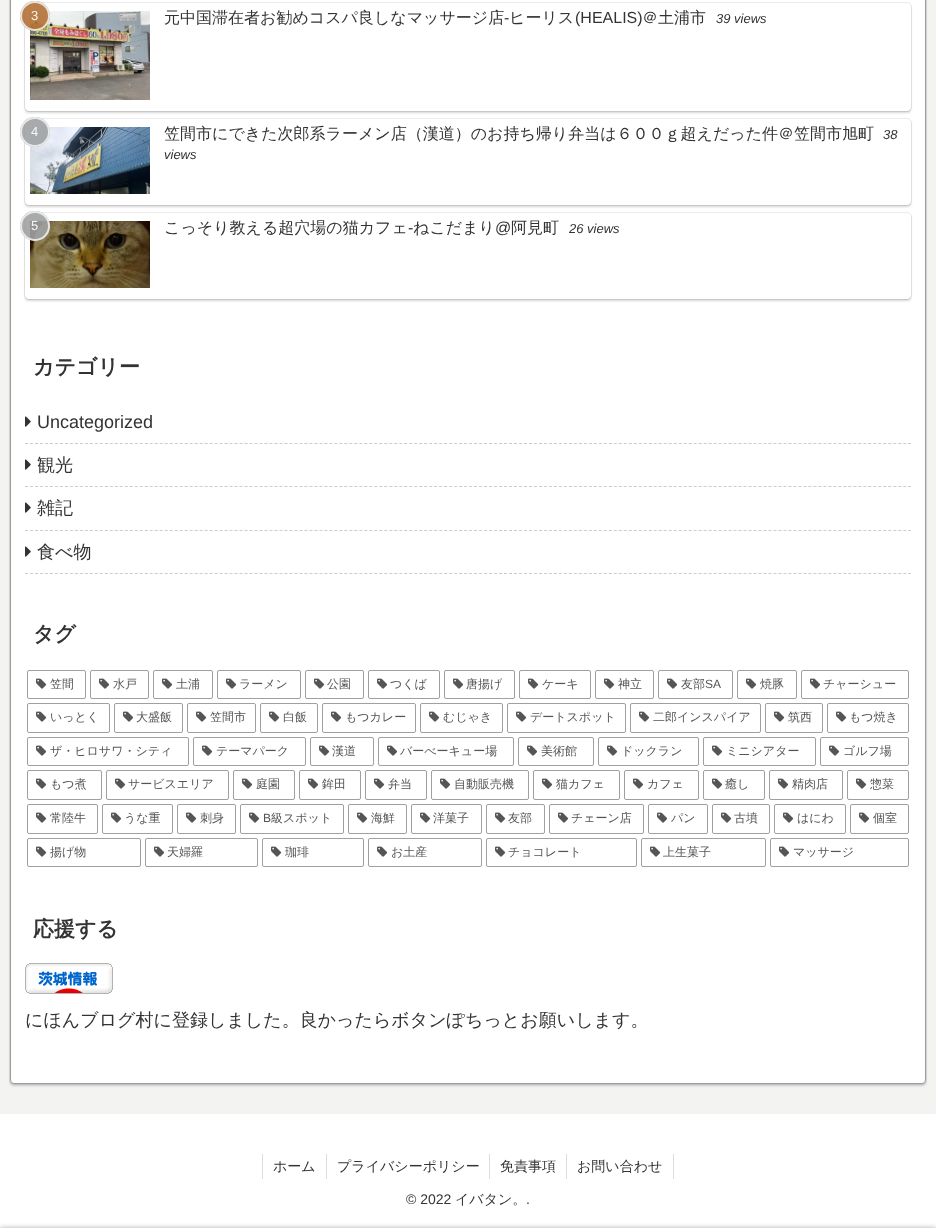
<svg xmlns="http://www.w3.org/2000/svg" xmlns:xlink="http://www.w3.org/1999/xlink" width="936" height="1228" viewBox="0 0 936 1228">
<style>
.cls-1{font:13px Liberation Sans;fill:#f8f2ed}
.cls-2{font:500 16px WenQuanYi Zen Hei;fill:#333333}
.cls-3{font:16px Liberation Sans;fill:#333333}
.cls-4{font:italic 13px Liberation Sans;fill:#333333}
.cls-5{font:13px Liberation Sans;fill:#f6f6f7}
.cls-6{font:bold 21px WenQuanYi Zen Hei;fill:#333333}
.cls-7{font:18px Liberation Sans;fill:#333333}
.cls-8{font:500 18px WenQuanYi Zen Hei;fill:#333333}
.cls-9{font:500 12px WenQuanYi Zen Hei;fill:#555555}
.cls-10{font:12px Liberation Sans;fill:#555555}
.cls-11{font:500 14px WenQuanYi Zen Hei;fill:#333333}
.cls-12{font:14px Liberation Sans;fill:#333333}
</style>
<defs>
<clipPath id="clip1"><path d="M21 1H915V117H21ZM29 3H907C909 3 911 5 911 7V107C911 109 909 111 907 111H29C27 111 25 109 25 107V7C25 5 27 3 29 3Z" clip-rule="evenodd"/></clipPath>
<clipPath id="clip2"><path d="M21 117H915V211H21ZM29 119H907C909 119 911 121 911 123V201C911 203 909 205 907 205H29C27 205 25 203 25 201V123C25 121 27 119 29 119Z" clip-rule="evenodd"/></clipPath>
<clipPath id="clip3"><path d="M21 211H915V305H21ZM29 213H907C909 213 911 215 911 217V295C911 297 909 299 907 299H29C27 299 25 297 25 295V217C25 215 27 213 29 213Z" clip-rule="evenodd"/></clipPath>
</defs>
<rect width="100%" height="100%" fill="#f3f3f2"/>
<rect fill="none" stroke="#e0e0df" x="9.5" y="-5.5" width="917" height="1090" rx="4.5"/>
<rect fill="#000000" fill-opacity="0.16" filter="blur(1px)" x="10" y="-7" width="916" height="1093" rx="4"/>
<rect fill="#ffffff" stroke="#9e9e9e" x="10.5" y="-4.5" width="915" height="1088" rx="3.5"/>
<rect fill="none" stroke="#ebebeb" x="24.5" y="2.5" width="887" height="109" rx="4.5"/>
<g clip-path="url(#clip1)">
<rect fill="#000000" fill-opacity="0.16" filter="blur(1px)" x="25" y="5" width="886" height="108" rx="4"/>
</g>
<image xlink:href="image0.png" x="30" y="11" width="120" height="89"/>
<circle fill="#b37036" fill-opacity="0.9" cx="35" cy="16" r="15"/>
<circle fill="none" stroke="#eeeeee" stroke-opacity="0.9" stroke-width="2" cx="35" cy="16" r="14"/>
<rect fill="none" stroke="#ebebeb" x="24.5" y="118.5" width="887" height="87" rx="4.5"/>
<g clip-path="url(#clip2)">
<rect fill="#000000" fill-opacity="0.16" filter="blur(1px)" x="25" y="121" width="886" height="86" rx="4"/>
</g>
<image xlink:href="image1.png" x="30" y="127" width="120" height="67"/>
<circle fill="#9ea1a3" fill-opacity="0.9" cx="35" cy="132" r="15"/>
<circle fill="none" stroke="#eeeeee" stroke-opacity="0.9" stroke-width="2" cx="35" cy="132" r="14"/>
<rect fill="none" stroke="#ebebeb" x="24.5" y="212.5" width="887" height="87" rx="4.5"/>
<g clip-path="url(#clip3)">
<rect fill="#000000" fill-opacity="0.16" filter="blur(1px)" x="25" y="215" width="886" height="86" rx="4"/>
</g>
<image xlink:href="image2.png" x="30" y="221" width="120" height="67"/>
<circle fill="#9ea1a3" fill-opacity="0.9" cx="35" cy="226" r="15"/>
<circle fill="none" stroke="#eeeeee" stroke-opacity="0.9" stroke-width="2" cx="35" cy="226" r="14"/>
<path fill="none" stroke="#cccccc" stroke-dasharray="3 1.99" d="M25 443.5H911"/>
<image xlink:href="image3.png" x="25" y="416" width="6" height="11"/>
<path fill="none" stroke="#cccccc" stroke-dasharray="3 1.99" d="M25 486.5H911"/>
<image xlink:href="image3.png" x="25" y="459" width="6" height="11"/>
<path fill="none" stroke="#cccccc" stroke-dasharray="3 1.99" d="M25 530.5H911"/>
<image xlink:href="image3.png" x="25" y="502" width="6" height="11"/>
<path fill="none" stroke="#cccccc" stroke-dasharray="3 1.99" d="M25 573.5H911"/>
<image xlink:href="image3.png" x="25" y="546" width="6" height="11"/>
<rect fill="none" stroke="#9ea1a3" x="27.5" y="670.5" width="58" height="28" rx="1.5"/>
<image xlink:href="image4.png" x="36" y="678" width="11" height="11"/>
<rect fill="none" stroke="#9ea1a3" x="90.5" y="670.5" width="58" height="28" rx="1.5"/>
<image xlink:href="image4.png" x="99" y="678" width="11" height="11"/>
<rect fill="none" stroke="#9ea1a3" x="153.5" y="670.5" width="59" height="28" rx="1.5"/>
<image xlink:href="image4.png" x="162" y="678" width="11" height="11"/>
<rect fill="none" stroke="#9ea1a3" x="217.5" y="670.5" width="83" height="28" rx="1.5"/>
<image xlink:href="image4.png" x="226" y="678" width="11" height="11"/>
<rect fill="none" stroke="#9ea1a3" x="305.5" y="670.5" width="58" height="28" rx="1.5"/>
<image xlink:href="image4.png" x="314" y="678" width="11" height="11"/>
<rect fill="none" stroke="#9ea1a3" x="368.5" y="670.5" width="71" height="28" rx="1.5"/>
<image xlink:href="image4.png" x="377" y="678" width="11" height="11"/>
<rect fill="none" stroke="#9ea1a3" x="444.5" y="670.5" width="70" height="28" rx="1.5"/>
<image xlink:href="image4.png" x="453" y="678" width="11" height="11"/>
<rect fill="none" stroke="#9ea1a3" x="519.5" y="670.5" width="71" height="28" rx="1.5"/>
<image xlink:href="image4.png" x="528" y="678" width="11" height="11"/>
<rect fill="none" stroke="#9ea1a3" x="595.5" y="670.5" width="58" height="28" rx="1.5"/>
<image xlink:href="image4.png" x="604" y="678" width="11" height="11"/>
<rect fill="none" stroke="#9ea1a3" x="658.5" y="670.5" width="74" height="28" rx="1.5"/>
<image xlink:href="image4.png" x="667" y="678" width="11" height="11"/>
<rect fill="none" stroke="#9ea1a3" x="737.5" y="670.5" width="59" height="28" rx="1.5"/>
<image xlink:href="image4.png" x="746" y="678" width="11" height="11"/>
<rect fill="none" stroke="#9ea1a3" x="801.5" y="670.5" width="107" height="28" rx="1.5"/>
<image xlink:href="image4.png" x="810" y="678" width="11" height="11"/>
<rect fill="none" stroke="#9ea1a3" x="27.5" y="703.5" width="82" height="29" rx="1.5"/>
<image xlink:href="image4.png" x="36" y="711" width="11" height="11"/>
<rect fill="none" stroke="#9ea1a3" x="114.5" y="703.5" width="68" height="29" rx="1.5"/>
<image xlink:href="image4.png" x="123" y="711" width="11" height="11"/>
<rect fill="none" stroke="#9ea1a3" x="187.5" y="703.5" width="68" height="29" rx="1.5"/>
<image xlink:href="image4.png" x="196" y="711" width="11" height="11"/>
<rect fill="none" stroke="#9ea1a3" x="260.5" y="703.5" width="57" height="29" rx="1.5"/>
<image xlink:href="image4.png" x="269" y="711" width="11" height="11"/>
<rect fill="none" stroke="#9ea1a3" x="322.5" y="703.5" width="93" height="29" rx="1.5"/>
<image xlink:href="image4.png" x="331" y="711" width="11" height="11"/>
<rect fill="none" stroke="#9ea1a3" x="420.5" y="703.5" width="82" height="29" rx="1.5"/>
<image xlink:href="image4.png" x="429" y="711" width="11" height="11"/>
<rect fill="none" stroke="#9ea1a3" x="507.5" y="703.5" width="118" height="29" rx="1.5"/>
<image xlink:href="image4.png" x="516" y="711" width="11" height="11"/>
<rect fill="none" stroke="#9ea1a3" x="630.5" y="703.5" width="130" height="29" rx="1.5"/>
<image xlink:href="image4.png" x="639" y="711" width="11" height="11"/>
<rect fill="none" stroke="#9ea1a3" x="765.5" y="703.5" width="57" height="29" rx="1.5"/>
<image xlink:href="image4.png" x="774" y="711" width="11" height="11"/>
<rect fill="none" stroke="#9ea1a3" x="827.5" y="703.5" width="81" height="29" rx="1.5"/>
<image xlink:href="image4.png" x="836" y="711" width="11" height="11"/>
<rect fill="none" stroke="#9ea1a3" x="27.5" y="737.5" width="161" height="28" rx="1.5"/>
<image xlink:href="image4.png" x="36" y="745" width="11" height="11"/>
<rect fill="none" stroke="#9ea1a3" x="193.5" y="737.5" width="112" height="28" rx="1.5"/>
<image xlink:href="image4.png" x="202" y="745" width="11" height="11"/>
<rect fill="none" stroke="#9ea1a3" x="310.5" y="737.5" width="63" height="28" rx="1.5"/>
<image xlink:href="image4.png" x="319" y="745" width="11" height="11"/>
<rect fill="none" stroke="#9ea1a3" x="378.5" y="737.5" width="135" height="28" rx="1.5"/>
<image xlink:href="image4.png" x="387" y="745" width="11" height="11"/>
<rect fill="none" stroke="#9ea1a3" x="518.5" y="737.5" width="75" height="28" rx="1.5"/>
<image xlink:href="image4.png" x="527" y="745" width="11" height="11"/>
<rect fill="none" stroke="#9ea1a3" x="598.5" y="737.5" width="100" height="28" rx="1.5"/>
<image xlink:href="image4.png" x="607" y="745" width="11" height="11"/>
<rect fill="none" stroke="#9ea1a3" x="703.5" y="737.5" width="112" height="28" rx="1.5"/>
<image xlink:href="image4.png" x="712" y="745" width="11" height="11"/>
<rect fill="none" stroke="#9ea1a3" x="820.5" y="737.5" width="88" height="28" rx="1.5"/>
<image xlink:href="image4.png" x="829" y="745" width="11" height="11"/>
<rect fill="none" stroke="#9ea1a3" x="27.5" y="770.5" width="74" height="29" rx="1.5"/>
<image xlink:href="image4.png" x="36" y="778" width="11" height="11"/>
<rect fill="none" stroke="#9ea1a3" x="106.5" y="770.5" width="122" height="29" rx="1.5"/>
<image xlink:href="image4.png" x="115" y="778" width="11" height="11"/>
<rect fill="none" stroke="#9ea1a3" x="233.5" y="770.5" width="61" height="29" rx="1.5"/>
<image xlink:href="image4.png" x="242" y="778" width="11" height="11"/>
<rect fill="none" stroke="#9ea1a3" x="299.5" y="770.5" width="61" height="29" rx="1.5"/>
<image xlink:href="image4.png" x="308" y="778" width="11" height="11"/>
<rect fill="none" stroke="#9ea1a3" x="365.5" y="770.5" width="61" height="29" rx="1.5"/>
<image xlink:href="image4.png" x="374" y="778" width="11" height="11"/>
<rect fill="none" stroke="#9ea1a3" x="431.5" y="770.5" width="97" height="29" rx="1.5"/>
<image xlink:href="image4.png" x="440" y="778" width="11" height="11"/>
<rect fill="none" stroke="#9ea1a3" x="533.5" y="770.5" width="86" height="29" rx="1.5"/>
<image xlink:href="image4.png" x="542" y="778" width="11" height="11"/>
<rect fill="none" stroke="#9ea1a3" x="624.5" y="770.5" width="74" height="29" rx="1.5"/>
<image xlink:href="image4.png" x="633" y="778" width="11" height="11"/>
<rect fill="none" stroke="#9ea1a3" x="703.5" y="770.5" width="61" height="29" rx="1.5"/>
<image xlink:href="image4.png" x="712" y="778" width="11" height="11"/>
<rect fill="none" stroke="#9ea1a3" x="769.5" y="770.5" width="73" height="29" rx="1.5"/>
<image xlink:href="image4.png" x="778" y="778" width="11" height="11"/>
<rect fill="none" stroke="#9ea1a3" x="847.5" y="770.5" width="61" height="29" rx="1.5"/>
<image xlink:href="image4.png" x="856" y="778" width="11" height="11"/>
<rect fill="none" stroke="#9ea1a3" x="27.5" y="804.5" width="70" height="29" rx="1.5"/>
<image xlink:href="image4.png" x="36" y="812" width="11" height="11"/>
<rect fill="none" stroke="#9ea1a3" x="102.5" y="804.5" width="70" height="29" rx="1.5"/>
<image xlink:href="image4.png" x="111" y="812" width="11" height="11"/>
<rect fill="none" stroke="#9ea1a3" x="177.5" y="804.5" width="58" height="29" rx="1.5"/>
<image xlink:href="image4.png" x="186" y="812" width="11" height="11"/>
<rect fill="none" stroke="#9ea1a3" x="240.5" y="804.5" width="103" height="29" rx="1.5"/>
<image xlink:href="image4.png" x="249" y="812" width="11" height="11"/>
<rect fill="none" stroke="#9ea1a3" x="348.5" y="804.5" width="58" height="29" rx="1.5"/>
<image xlink:href="image4.png" x="357" y="812" width="11" height="11"/>
<rect fill="none" stroke="#9ea1a3" x="411.5" y="804.5" width="70" height="29" rx="1.5"/>
<image xlink:href="image4.png" x="420" y="812" width="11" height="11"/>
<rect fill="none" stroke="#9ea1a3" x="486.5" y="804.5" width="58" height="29" rx="1.5"/>
<image xlink:href="image4.png" x="495" y="812" width="11" height="11"/>
<rect fill="none" stroke="#9ea1a3" x="549.5" y="804.5" width="94" height="29" rx="1.5"/>
<image xlink:href="image4.png" x="558" y="812" width="11" height="11"/>
<rect fill="none" stroke="#9ea1a3" x="648.5" y="804.5" width="59" height="29" rx="1.5"/>
<image xlink:href="image4.png" x="657" y="812" width="11" height="11"/>
<rect fill="none" stroke="#9ea1a3" x="712.5" y="804.5" width="57" height="29" rx="1.5"/>
<image xlink:href="image4.png" x="721" y="812" width="11" height="11"/>
<rect fill="none" stroke="#9ea1a3" x="774.5" y="804.5" width="71" height="29" rx="1.5"/>
<image xlink:href="image4.png" x="783" y="812" width="11" height="11"/>
<rect fill="none" stroke="#9ea1a3" x="850.5" y="804.5" width="58" height="29" rx="1.5"/>
<image xlink:href="image4.png" x="859" y="812" width="11" height="11"/>
<rect fill="none" stroke="#9ea1a3" x="27.5" y="838.5" width="113" height="28" rx="1.5"/>
<image xlink:href="image4.png" x="36" y="846" width="11" height="11"/>
<rect fill="none" stroke="#9ea1a3" x="145.5" y="838.5" width="112" height="28" rx="1.5"/>
<image xlink:href="image4.png" x="154" y="846" width="11" height="11"/>
<rect fill="none" stroke="#9ea1a3" x="262.5" y="838.5" width="101" height="28" rx="1.5"/>
<image xlink:href="image4.png" x="271" y="846" width="11" height="11"/>
<rect fill="none" stroke="#9ea1a3" x="368.5" y="838.5" width="113" height="28" rx="1.5"/>
<image xlink:href="image4.png" x="377" y="846" width="11" height="11"/>
<rect fill="none" stroke="#9ea1a3" x="486.5" y="838.5" width="150" height="28" rx="1.5"/>
<image xlink:href="image4.png" x="495" y="846" width="11" height="11"/>
<rect fill="none" stroke="#9ea1a3" x="641.5" y="838.5" width="124" height="28" rx="1.5"/>
<image xlink:href="image4.png" x="650" y="846" width="11" height="11"/>
<rect fill="none" stroke="#9ea1a3" x="770.5" y="838.5" width="138" height="28" rx="1.5"/>
<image xlink:href="image4.png" x="779" y="846" width="11" height="11"/>
<image xlink:href="image5.png" x="25" y="963" width="88" height="31"/>
<rect fill="#ffffff" x="0" y="1114" width="936" height="114"/>
<rect fill="#dddddd" x="262" y="1154" width="1" height="25"/>
<rect fill="#dddddd" x="326" y="1154" width="1" height="25"/>
<rect fill="#dddddd" x="489" y="1154" width="1" height="25"/>
<rect fill="#dddddd" x="673" y="1154" width="1" height="25"/>
<rect fill="#dddddd" x="566" y="1154" width="1" height="25"/>
<rect fill="#a9a9a9" filter="blur(2.5px)" x="0" y="1228" width="936" height="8"/>
<text class="cls-1" x="31" y="20">3</text>
<text class="cls-2" x="164" y="23">元中国滞在者お勧めコスパ良しなマッサージ店</text>
<text class="cls-3" x="504" y="23">-</text>
<text class="cls-2" x="509" y="23">ヒーリス</text>
<text class="cls-3" x="575" y="23">(HEALIS)</text>
<text class="cls-2" x="642" y="23">＠土浦市</text>
<text class="cls-4" x="716" y="23">39 views</text>
<text class="cls-5" x="31" y="136">4</text>
<text class="cls-2" x="164" y="139">笠間市にできた次郎系ラーメン店（漢道）のお持ち帰り弁当は６００ｇ超えだった件＠笠間市旭町</text>
<text class="cls-4" x="883" y="139">38</text>
<text class="cls-4" x="164" y="159">views</text>
<text class="cls-5" x="31" y="230">5</text>
<text class="cls-2" x="164" y="233">こっそり教える超穴場の猫カフェ</text>
<text class="cls-3" x="408" y="233">-</text>
<text class="cls-2" x="413" y="233">ねこだまり</text>
<text class="cls-3" x="495" y="233">@</text>
<text class="cls-2" x="511" y="233">阿見町</text>
<text class="cls-4" x="569" y="233">26 views</text>
<text class="cls-6" x="33" y="374">カテゴリー</text>
<text class="cls-7" x="37" y="428">Uncategorized</text>
<text class="cls-8" x="37" y="471">観光</text>
<text class="cls-8" x="37" y="514">雑記</text>
<text class="cls-8" x="37" y="558">食べ物</text>
<text class="cls-6" x="33" y="641">タグ</text>
<text class="cls-9" x="50" y="688">笠間</text>
<text class="cls-9" x="113" y="688">水戸</text>
<text class="cls-9" x="176" y="688">土浦</text>
<text class="cls-9" x="239" y="688">ラーメン</text>
<text class="cls-9" x="327" y="688">公園</text>
<text class="cls-9" x="390" y="688">つくば</text>
<text class="cls-9" x="466" y="688">唐揚げ</text>
<text class="cls-9" x="542" y="688">ケーキ</text>
<text class="cls-9" x="618" y="688">神立</text>
<text class="cls-9" x="681" y="688">友部</text>
<text class="cls-10" x="705" y="688">SA</text>
<text class="cls-9" x="760" y="688">焼豚</text>
<text class="cls-9" x="823" y="688">チャーシュー</text>
<text class="cls-9" x="50" y="721">いっとく</text>
<text class="cls-9" x="136" y="721">大盛飯</text>
<text class="cls-9" x="210" y="721">笠間市</text>
<text class="cls-9" x="283" y="721">白飯</text>
<text class="cls-9" x="345" y="721">もつカレー</text>
<text class="cls-9" x="443" y="721">むじゃき</text>
<text class="cls-9" x="530" y="721">デートスポット</text>
<text class="cls-9" x="653" y="721">二郎インスパイア</text>
<text class="cls-9" x="788" y="721">筑西</text>
<text class="cls-9" x="849" y="721">もつ焼き</text>
<text class="cls-9" x="50" y="755">ザ・ヒロサワ・シティ</text>
<text class="cls-9" x="216" y="755">テーマパーク</text>
<text class="cls-9" x="332" y="755">漢道</text>
<text class="cls-9" x="400" y="755">バーべーキュー場</text>
<text class="cls-9" x="541" y="755">美術館</text>
<text class="cls-9" x="621" y="755">ドックラン</text>
<text class="cls-9" x="726" y="755">ミニシアター</text>
<text class="cls-9" x="843" y="755">ゴルフ場</text>
<text class="cls-9" x="50" y="788">もつ煮</text>
<text class="cls-9" x="128" y="788">サービスエリア</text>
<text class="cls-9" x="256" y="788">庭園</text>
<text class="cls-9" x="322" y="788">鉾田</text>
<text class="cls-9" x="388" y="788">弁当</text>
<text class="cls-9" x="454" y="788">自動販売機</text>
<text class="cls-9" x="556" y="788">猫カフェ</text>
<text class="cls-9" x="647" y="788">カフェ</text>
<text class="cls-9" x="725" y="788">癒し</text>
<text class="cls-9" x="792" y="788">精肉店</text>
<text class="cls-9" x="870" y="788">惣菜</text>
<text class="cls-9" x="50" y="822">常陸牛</text>
<text class="cls-9" x="124" y="822">うな重</text>
<text class="cls-9" x="200" y="822">刺身</text>
<text class="cls-10" x="263" y="822">B</text>
<text class="cls-9" x="271" y="822">級スポット</text>
<text class="cls-9" x="371" y="822">海鮮</text>
<text class="cls-9" x="433" y="822">洋菓子</text>
<text class="cls-9" x="508" y="822">友部</text>
<text class="cls-9" x="571" y="822">チェーン店</text>
<text class="cls-9" x="671" y="822">パン</text>
<text class="cls-9" x="734" y="822">古墳</text>
<text class="cls-9" x="797" y="822">はにわ</text>
<text class="cls-9" x="873" y="822">個室</text>
<text class="cls-9" x="50" y="856">揚げ物</text>
<text class="cls-9" x="167" y="856">天婦羅</text>
<text class="cls-9" x="285" y="856">珈琲</text>
<text class="cls-9" x="391" y="856">お土産</text>
<text class="cls-9" x="508" y="856">チョコレート</text>
<text class="cls-9" x="663" y="856">上生菓子</text>
<text class="cls-9" x="793" y="856">マッサージ</text>
<text class="cls-6" x="33" y="936">応援する</text>
<text class="cls-8" x="25" y="1026">にほんブログ村に登録しました。良かったらボタンぽちっとお願いします。</text>
<text class="cls-11" x="273" y="1171">ホーム</text>
<text class="cls-11" x="337" y="1171">プライバシーポリシー</text>
<text class="cls-11" x="500" y="1171">免責事項</text>
<text class="cls-11" x="577" y="1171">お問い合わせ</text>
<text class="cls-12" x="406" y="1204">© 2022</text>
<text class="cls-11" x="455" y="1204">イバタン。</text>
<text class="cls-12" x="526" y="1204">.</text>
</svg>
